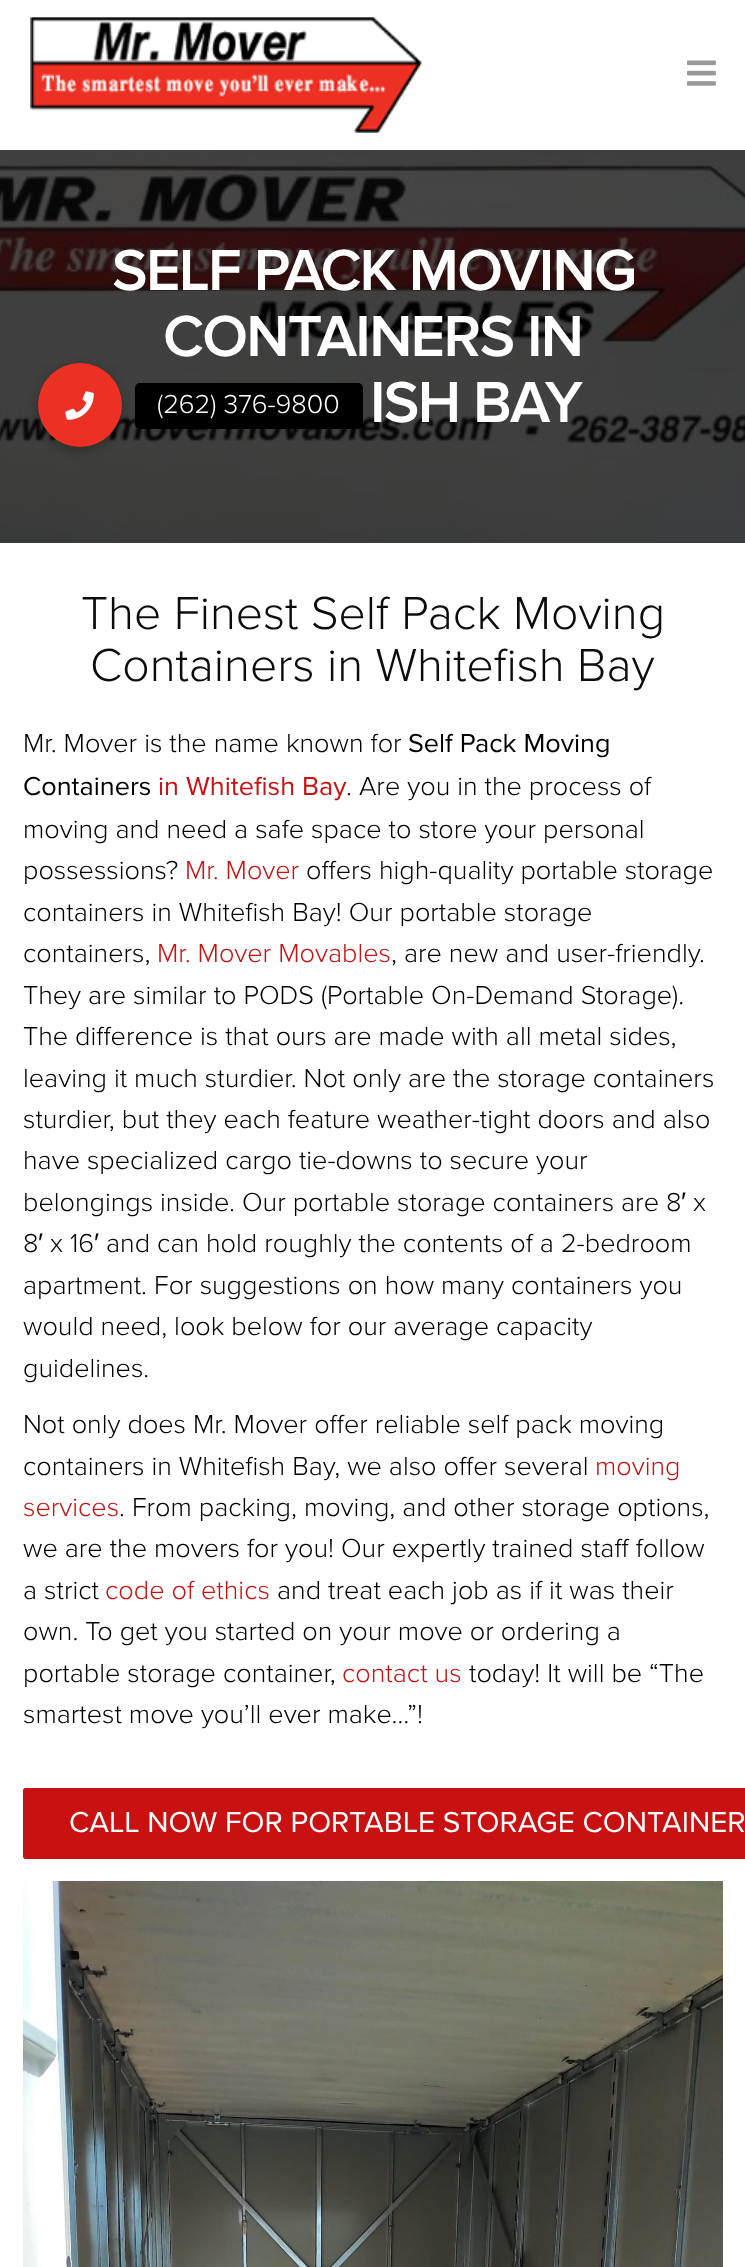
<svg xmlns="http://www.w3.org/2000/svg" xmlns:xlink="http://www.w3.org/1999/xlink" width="745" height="2267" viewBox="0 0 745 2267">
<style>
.cls-1{font:600 60px 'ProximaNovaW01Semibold';letter-spacing:-1.75px;fill:#ffffff}
.cls-2{font:300 48px 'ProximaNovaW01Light';fill:#0c0c0c}
.cls-3{font:300 27px 'ProximaNovaW01Light';fill:#000000}
.cls-4{font:27px 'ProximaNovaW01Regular';fill:#000000}
.cls-5{font:27px 'ProximaNovaW01Regular';fill:#ca1111}
.cls-6{font:300 27px 'ProximaNovaW01Light';fill:#ca1111}
.cls-7{font:27px Liberation Sans;fill:#000000}
.cls-8{font:30px 'ProximaNovaW01Regular';fill:#ffffff}
.cls-9{font:300 27px 'ProximaNovaW01Light';fill:#ffffff}
</style>
<rect width="100%" height="100%" fill="#ffffff"/>
<image xlink:href="image0.png" x="30" y="17" width="392" height="116"/>
<image xlink:href="image1.png" x="687" y="60" width="29" height="26"/>
<image xlink:href="image2.png" x="0" y="150" width="745" height="393"/>
<path fill="#ca1111" d="M26 1788H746V1859H26C24.5 1859 23 1857.5 23 1856V1791C23 1789.5 24.5 1788 26 1788Z"/>
<rect fill="none" stroke="#ca1111" stroke-width="2" x="24" y="1789" width="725" height="69" rx="2"/>
<image xlink:href="image3.png" x="23" y="1880" width="700" height="387"/>
<rect fill="#000000" fill-opacity="0.2" filter="blur(4.5px)" x="36" y="365" width="87" height="87" rx="43.5"/>
<circle fill="#ed3024" cx="80" cy="405" r="42"/>
<image xlink:href="image4.png" x="65" y="391" width="29" height="29"/>
<rect fill="#000000" x="135" y="383" width="228" height="46" rx="5"/>
<text class="cls-1" x="112" y="290">SELF PACK MOVING</text>
<text class="cls-1" x="163" y="356">CONTAINERS IN</text>
<text class="cls-1" x="370" y="422">ISH BAY</text>
<text class="cls-2" x="81" y="629">The Finest Self Pack Moving</text>
<text class="cls-2" x="90" y="681">Containers in Whitefish Bay</text>
<text class="cls-3" x="23" y="752">Mr. Mover is the name known for</text>
<text class="cls-4" x="408" y="752">Self Pack Moving</text>
<text class="cls-4" x="23" y="795">Containers</text>
<text class="cls-5" x="158" y="795">in Whitefish Bay</text>
<text class="cls-3" x="346" y="795">. Are you in the process of</text>
<text class="cls-3"><tspan x="23" y="838">moving and need a safe space to store your personal</tspan><tspan x="23" y="879">possessions?</tspan></text>
<text class="cls-6" x="185" y="879">Mr. Mover</text>
<text class="cls-3" x="306" y="879">offers high-quality portable storage</text>
<text class="cls-3"><tspan x="23" y="921">containers in Whitefish Bay! Our portable storage</tspan><tspan x="23" y="962">containers,</tspan></text>
<text class="cls-6" x="157" y="962">Mr. Mover Movables</text>
<text class="cls-3" x="391" y="962">, are new and user-friendly.</text>
<text class="cls-3"><tspan x="23" y="1004">They are similar to PODS (Portable On-Demand Storage).</tspan><tspan x="23" y="1045">The difference is that ours are made with all metal sides,</tspan><tspan x="23" y="1087">leaving it much sturdier. Not only are the storage containers</tspan><tspan x="23" y="1128">sturdier, but they each feature weather-tight doors and also</tspan><tspan x="23" y="1169">have specialized cargo tie-downs to secure your</tspan><tspan x="23" y="1211">belongings inside. Our portable storage containers are 8</tspan></text>
<text class="cls-7" x="681" y="1211">′</text>
<text class="cls-3" x="693" y="1211">x</text>
<text class="cls-3" x="23" y="1252">8</text>
<text class="cls-7" x="38" y="1252">′</text>
<text class="cls-3" x="50" y="1252">x 16</text>
<text class="cls-7" x="94" y="1252">′</text>
<text class="cls-3" x="106" y="1252">and can hold roughly the contents of a 2-bedroom</text>
<text class="cls-3"><tspan x="23" y="1294">apartment. For suggestions on how many containers you</tspan><tspan x="23" y="1335">would need, look below for our average capacity</tspan><tspan x="23" y="1377">guidelines.</tspan></text>
<text class="cls-3"><tspan x="23" y="1433">Not only does Mr. Mover offer reliable self pack moving</tspan><tspan x="23" y="1475">containers in Whitefish Bay, we also offer several</tspan></text>
<text class="cls-6" x="595" y="1475">moving</text>
<text class="cls-6" x="23" y="1516">services</text>
<text class="cls-3" x="119" y="1516">. From packing, moving, and other storage options,</text>
<text class="cls-3"><tspan x="23" y="1557">we are the movers for you! Our expertly trained staff follow</tspan><tspan x="23" y="1599">a strict</tspan></text>
<text class="cls-6" x="105" y="1599">code of ethics</text>
<text class="cls-3" x="277" y="1599">and treat each job as if it was their</text>
<text class="cls-3"><tspan x="23" y="1640">own. To get you started on your move or ordering a</tspan><tspan x="23" y="1682">portable storage container,</tspan></text>
<text class="cls-6" x="342" y="1682">contact us</text>
<text class="cls-3" x="469" y="1682">today! It will be “The</text>
<text class="cls-3" x="23" y="1723">smartest move you’ll ever make…”!</text>
<text class="cls-8" x="69" y="1832">CALL NOW FOR PORTABLE STORAGE CONTAINER</text>
<text class="cls-9" x="157" y="413">(262) 376-9800</text>
</svg>
